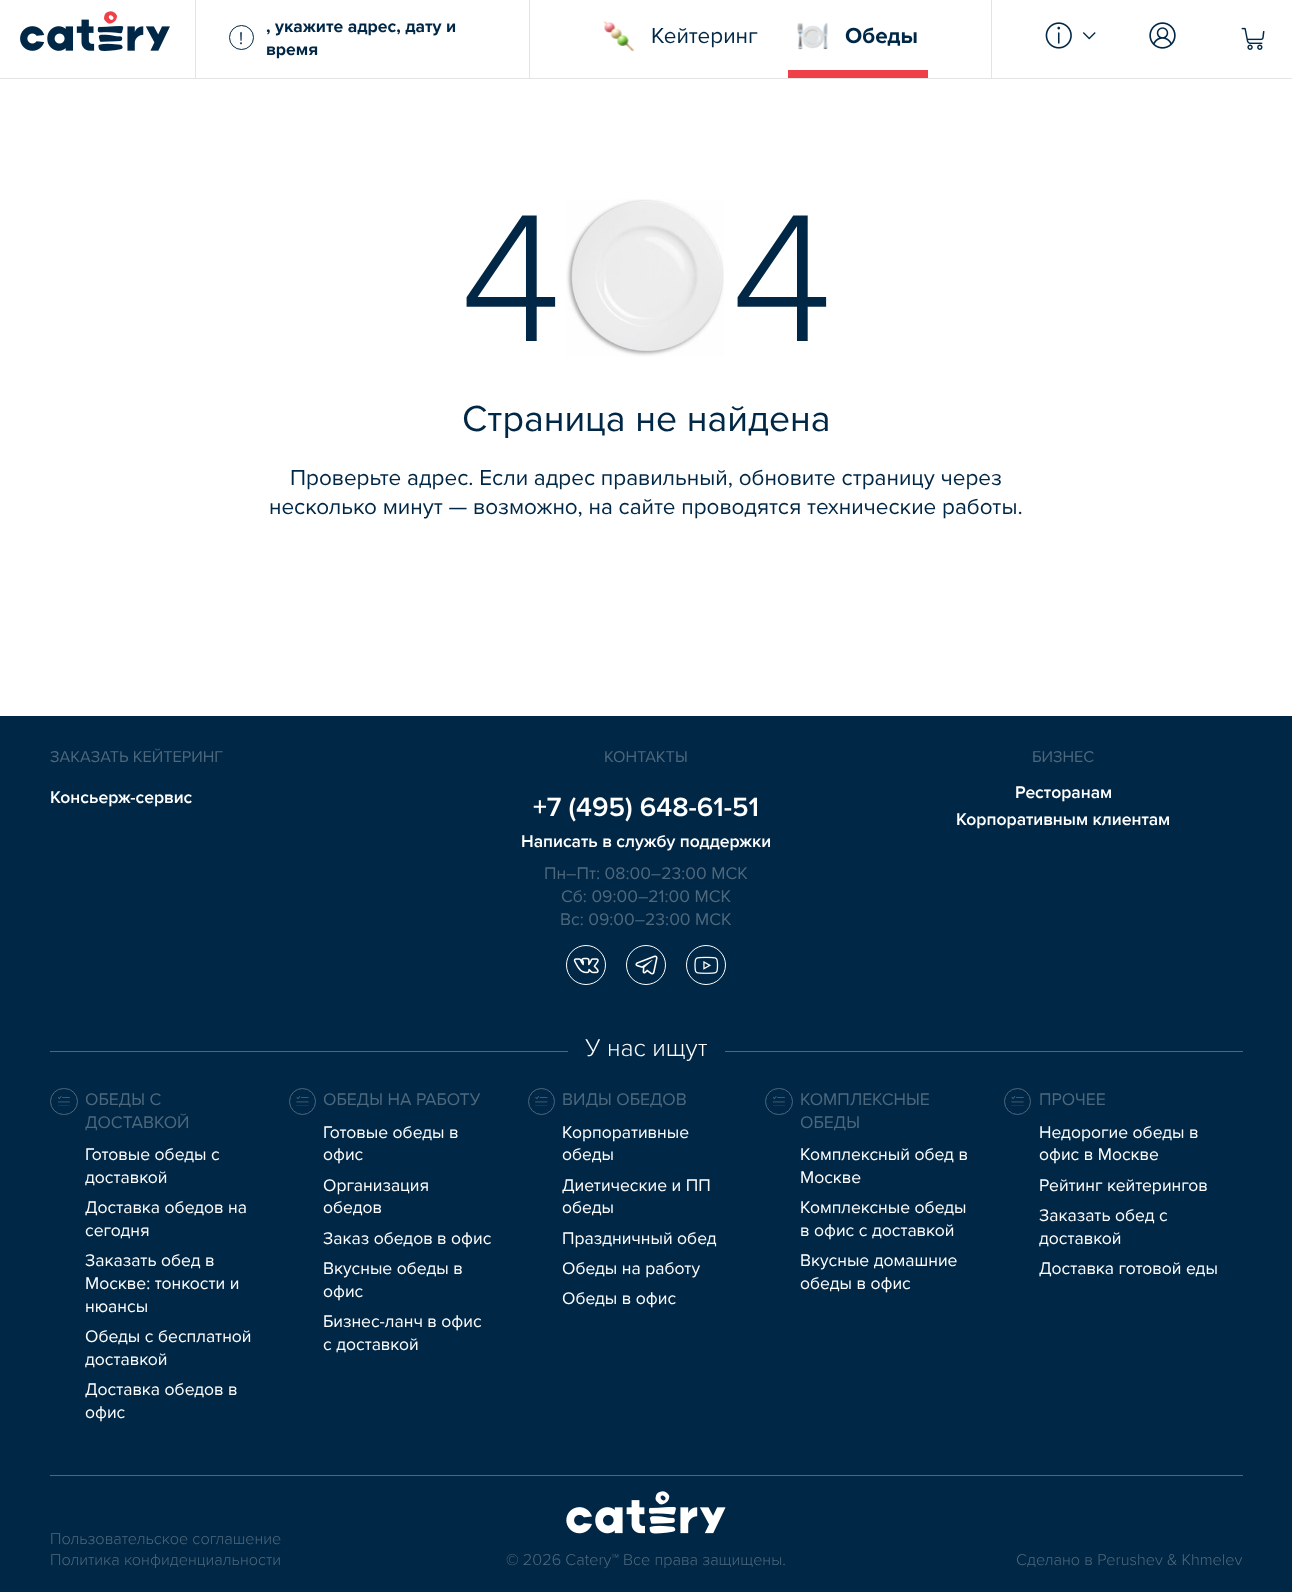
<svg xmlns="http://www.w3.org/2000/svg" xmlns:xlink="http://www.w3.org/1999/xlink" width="1292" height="1592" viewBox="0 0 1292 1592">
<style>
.cls-1{font:17.5px 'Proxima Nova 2';fill:#002745}
.cls-2{font:17.5px 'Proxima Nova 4';fill:#002745}
.cls-3{font:22.5px 'Proxima Nova 2';fill:#002745}
.cls-4{font:22.5px 'Proxima Nova 4';fill:#002745}
.cls-5{font:188px Proxima Nova;fill:#002745}
.cls-6{font:37.5px 'Proxima Nova 2';fill:#002745}
.cls-7{font:16.25px 'Proxima Nova 2';fill:#4d687d}
.cls-8{font:17.5px 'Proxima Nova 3';fill:#ffffff}
.cls-9{font:27.5px 'Proxima Nova 3';fill:#ffffff}
.cls-10{font:17.5px 'Proxima Nova 2';fill:#4d687d}
.cls-11{font:25px Proxima Nova;fill:#ffffff}
.cls-12{font:17.5px 'Proxima Nova 2';fill:#ffffff}
.cls-13{font:16.25px Proxima Nova;fill:#4d687d}
</style>
<rect width="100%" height="100%" fill="#ffffff"/>
<rect fill="#e4e4e4" x="0" y="78" width="1292" height="1"/>
<image xlink:href="image0.png" x="20" y="11" width="150" height="40"/>
<rect fill="#e4e4e4" x="529" y="0" width="1" height="78"/>
<rect fill="#e4e4e4" x="195" y="0" width="1" height="78"/>
<circle fill="none" stroke="#002745" cx="241.5" cy="37.5" r="12"/>
<image xlink:href="image1.png" x="603" y="21" width="32" height="31"/>
<rect fill="#ef404a" x="788" y="70" width="140" height="8"/>
<image xlink:href="image2.png" x="797" y="23" width="31" height="27"/>
<rect fill="#e4e4e4" x="991" y="0" width="1" height="78"/>
<image xlink:href="image3.png" x="1045" y="22" width="27" height="27"/>
<image xlink:href="image4.png" x="1082" y="32" width="14" height="8"/>
<image xlink:href="image5.png" x="1149" y="22" width="27" height="27"/>
<image xlink:href="image6.png" x="1241" y="27" width="24" height="23"/>
<image xlink:href="image7.png" x="566" y="199" width="158" height="158"/>
<rect fill="#002745" x="0" y="716" width="1292" height="876"/>
<circle fill="none" stroke="#ffffff" cx="586" cy="965" r="19.5"/>
<image xlink:href="image8.png" x="573" y="957" width="26" height="17"/>
<circle fill="none" stroke="#ffffff" cx="646" cy="965" r="19.5"/>
<image xlink:href="image9.png" x="635" y="955" width="23" height="20"/>
<circle fill="none" stroke="#ffffff" cx="706" cy="965" r="19.5"/>
<image xlink:href="image10.png" x="694" y="956" width="25" height="18"/>
<rect fill="#4d687d" x="50" y="1051" width="1193" height="1"/>
<rect fill="#002745" x="568" y="1051" width="157" height="1"/>
<rect fill="none" stroke="#4d687d" x="50.5" y="1088.5" width="27" height="26" rx="13"/>
<image xlink:href="image11.png" x="58" y="1096" width="12" height="10"/>
<circle fill="none" stroke="#4d687d" cx="302.5" cy="1101.5" r="13"/>
<image xlink:href="image12.png" x="296" y="1096" width="13" height="10"/>
<circle fill="none" stroke="#4d687d" cx="541.5" cy="1101.5" r="13"/>
<image xlink:href="image13.png" x="535" y="1096" width="13" height="10"/>
<rect fill="none" stroke="#4d687d" x="765.5" y="1088.5" width="27" height="26" rx="13"/>
<image xlink:href="image11.png" x="773" y="1096" width="12" height="10"/>
<circle fill="none" stroke="#4d687d" cx="1017.5" cy="1101.5" r="13"/>
<image xlink:href="image12.png" x="1011" y="1096" width="13" height="10"/>
<rect fill="#4d687d" x="50" y="1475" width="1193" height="1"/>
<image xlink:href="image14.png" x="566" y="1491" width="160" height="43"/>
<text class="cls-1" x="239" y="44">!</text>
<text class="cls-2"><tspan x="266" y="32">, укажите адрес, дату и</tspan><tspan x="266" y="55">время</tspan></text>
<text class="cls-3" x="651" y="43">Кейтеринг</text>
<text class="cls-4" x="845" y="43">Обеды</text>
<text class="cls-5" x="460" y="341">4</text>
<text class="cls-5" x="731" y="341">4</text>
<text class="cls-6" x="462" y="431">Страница не найдена</text>
<text class="cls-3" x="290" y="485">Проверьте адрес. Если адрес правильный, обновите страницу через</text>
<text class="cls-3" x="269" y="514">несколько минут — возможно, на сайте проводятся технические работы.</text>
<text class="cls-7" x="50" y="762">ЗАКАЗАТЬ КЕЙТЕРИНГ</text>
<text class="cls-8" x="50" y="803">Консьерж-сервис</text>
<text class="cls-7" x="604" y="762">КОНТАКТЫ</text>
<text class="cls-9" x="533" y="816">+7 (495) 648-61-51</text>
<text class="cls-8" x="521" y="847">Написать в службу поддержки</text>
<text class="cls-10" x="544" y="879">Пн–Пт: 08:00–23:00 МСК</text>
<text class="cls-10" x="561" y="902">Сб: 09:00–21:00 МСК</text>
<text class="cls-10" x="560" y="925">Вс: 09:00–23:00 МСК</text>
<text class="cls-7" x="1032" y="762">БИЗНЕС</text>
<text class="cls-8" x="1015" y="798">Ресторанам</text>
<text class="cls-8" x="956" y="825">Корпоративным клиентам</text>
<text class="cls-11" x="585" y="1056">У нас ищут</text>
<text class="cls-10"><tspan x="85" y="1105">ОБЕДЫ С</tspan><tspan x="85" y="1128">ДОСТАВКОЙ</tspan></text>
<text class="cls-12"><tspan x="85" y="1160">Готовые обеды с</tspan><tspan x="85" y="1183">доставкой</tspan><tspan x="85" y="1213">Доставка обедов на</tspan><tspan x="85" y="1236">сегодня</tspan><tspan x="85" y="1266">Заказать обед в</tspan><tspan x="85" y="1289">Москве: тонкости и</tspan><tspan x="85" y="1312">нюансы</tspan><tspan x="85" y="1342">Обеды с бесплатной</tspan><tspan x="85" y="1365">доставкой</tspan><tspan x="85" y="1395">Доставка обедов в</tspan><tspan x="85" y="1418">офис</tspan></text>
<text class="cls-10" x="323" y="1105">ОБЕДЫ НА РАБОТУ</text>
<text class="cls-12"><tspan x="323" y="1138">Готовые обеды в</tspan><tspan x="323" y="1160">офис</tspan><tspan x="323" y="1191">Организация</tspan><tspan x="323" y="1213">обедов</tspan><tspan x="323" y="1244">Заказ обедов в офис</tspan><tspan x="323" y="1274">Вкусные обеды в</tspan><tspan x="323" y="1297">офис</tspan><tspan x="323" y="1327">Бизнес-ланч в офис</tspan><tspan x="323" y="1350">с доставкой</tspan></text>
<text class="cls-10" x="562" y="1105">ВИДЫ ОБЕДОВ</text>
<text class="cls-12"><tspan x="562" y="1138">Корпоративные</tspan><tspan x="562" y="1160">обеды</tspan><tspan x="562" y="1191">Диетические и ПП</tspan><tspan x="562" y="1213">обеды</tspan><tspan x="562" y="1244">Праздничный обед</tspan><tspan x="562" y="1274">Обеды на работу</tspan><tspan x="562" y="1304">Обеды в офис</tspan></text>
<text class="cls-10"><tspan x="800" y="1105">КОМПЛЕКСНЫЕ</tspan><tspan x="800" y="1128">ОБЕДЫ</tspan></text>
<text class="cls-12"><tspan x="800" y="1160">Комплексный обед в</tspan><tspan x="800" y="1183">Москве</tspan><tspan x="800" y="1213">Комплексные обеды</tspan><tspan x="800" y="1236">в офис с доставкой</tspan><tspan x="800" y="1266">Вкусные домашние</tspan><tspan x="800" y="1289">обеды в офис</tspan></text>
<text class="cls-10" x="1039" y="1105">ПРОЧЕЕ</text>
<text class="cls-12"><tspan x="1039" y="1138">Недорогие обеды в</tspan><tspan x="1039" y="1160">офис в Москве</tspan><tspan x="1039" y="1191">Рейтинг кейтерингов</tspan><tspan x="1039" y="1221">Заказать обед с</tspan><tspan x="1039" y="1244">доставкой</tspan><tspan x="1039" y="1274">Доставка готовой еды</tspan></text>
<text class="cls-13"><tspan x="50" y="1544">Пользовательское соглашение</tspan><tspan x="50" y="1565">Политика конфиденциальности</tspan></text>
<text class="cls-13" x="506" y="1565">© 2026 Сatery™ Все права защищены.</text>
<text class="cls-13" x="1016" y="1565">Сделано в Perushev &amp; Khmelev</text>
</svg>
